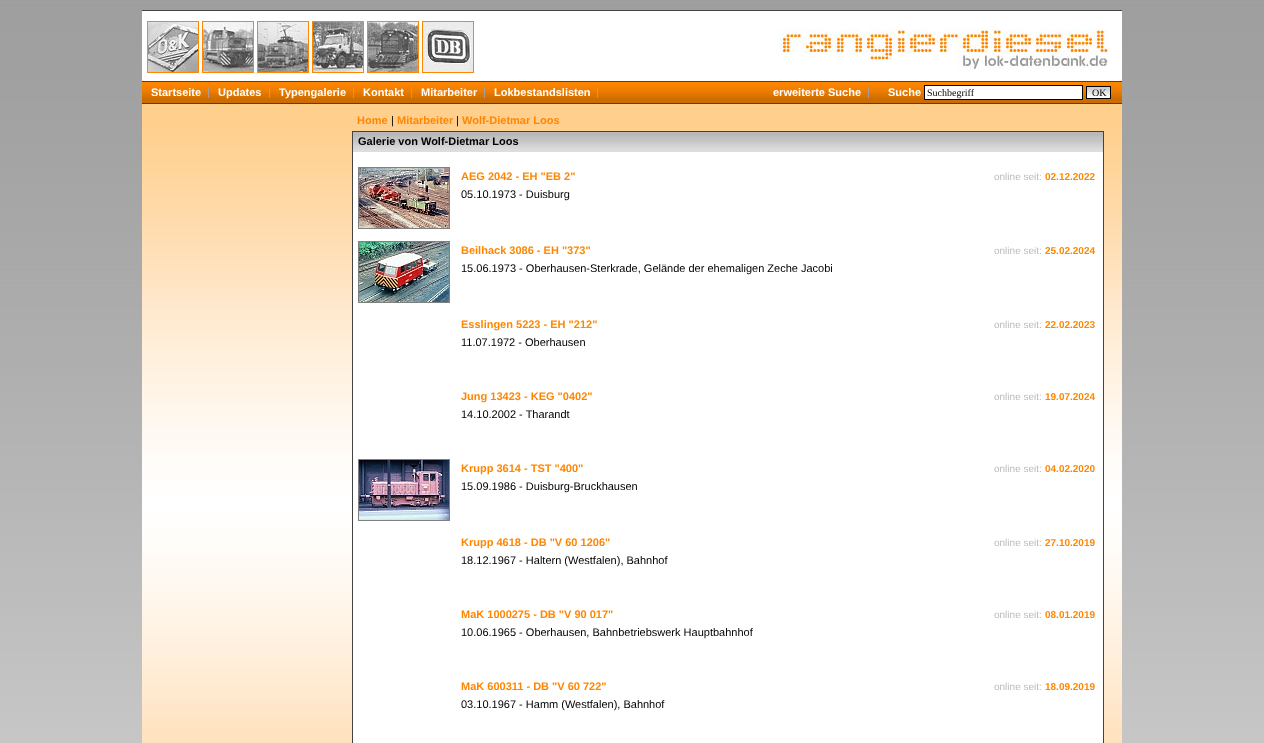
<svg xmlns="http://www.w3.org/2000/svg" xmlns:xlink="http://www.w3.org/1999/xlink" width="1264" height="743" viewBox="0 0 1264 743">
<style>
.cls-1{font:bold 11px Liberation Sans;fill:#ffffff}
.cls-2{font:10px Liberation Serif;fill:#000000}
.cls-3{font:bold 11px Liberation Sans;fill:#ff8600}
.cls-4{font:11px Liberation Sans;fill:#000000}
.cls-5{font:bold 11px Liberation Sans;fill:#000000}
.cls-6{font:10px Liberation Sans;fill:#bbbbbb}
.cls-7{font:bold 10px Liberation Sans;fill:#ff8600}
</style>
<rect width="100%" height="100%" fill="#ffffff"/>
<image xlink:href="image0.png" x="0" y="0" width="1264" height="743"/>
<rect fill="#ffffff" x="142" y="11" width="980" height="70"/>
<rect fill="#434343" x="142" y="10" width="980" height="1"/>
<rect fill="none" stroke="#ff8600" x="147.5" y="21.5" width="51" height="51"/>
<rect fill="none" stroke="#ff8600" x="202.5" y="21.5" width="51" height="51"/>
<rect fill="none" stroke="#ff8600" x="257.5" y="21.5" width="51" height="51"/>
<rect fill="none" stroke="#ff8600" x="312.5" y="21.5" width="51" height="51"/>
<rect fill="none" stroke="#ff8600" x="367.5" y="21.5" width="51" height="51"/>
<rect fill="none" stroke="#ff8600" x="422.5" y="21.5" width="51" height="51"/>
<image xlink:href="image1.png" x="148" y="22" width="50" height="50"/>
<image xlink:href="image2.png" x="203" y="22" width="50" height="50"/>
<image xlink:href="image3.png" x="258" y="22" width="50" height="50"/>
<image xlink:href="image4.png" x="313" y="22" width="50" height="50"/>
<image xlink:href="image5.png" x="368" y="22" width="50" height="50"/>
<image xlink:href="image6.png" x="423" y="22" width="50" height="50"/>
<image xlink:href="image7.png" x="780" y="29" width="328" height="40"/>
<rect fill="#434343" x="142" y="81" width="980" height="1"/>
<image xlink:href="image8.png" x="142" y="82" width="980" height="21"/>
<rect fill="#a0a0a0" x="208" y="87" width="1" height="11"/>
<rect fill="#a0a0a0" x="269" y="87" width="1" height="11"/>
<rect fill="#a0a0a0" x="353" y="87" width="1" height="11"/>
<rect fill="#a0a0a0" x="411" y="87" width="1" height="11"/>
<rect fill="#a0a0a0" x="484" y="87" width="1" height="11"/>
<rect fill="#a0a0a0" x="597" y="87" width="1" height="11"/>
<rect fill="#a0a0a0" x="868" y="87" width="1" height="11"/>
<rect fill="#ffffff" stroke="#000000" x="924.5" y="85.5" width="158" height="14"/>
<image xlink:href="image9.png" x="1087" y="87" width="23" height="11"/>
<rect fill="none" stroke="#000000" x="1086.5" y="86.5" width="24" height="12"/>
<image xlink:href="image10.png" x="142" y="104" width="980" height="639"/>
<rect fill="#434343" x="142" y="103" width="980" height="1"/>
<rect fill="#ffffff" x="353" y="152" width="750" height="591"/>
<rect fill="none" stroke="#434343" x="352.5" y="131.5" width="751" height="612"/>
<image xlink:href="image11.png" x="353" y="132" width="750" height="20"/>
<rect fill="none" stroke="#808080" x="358.5" y="167.5" width="91" height="61"/>
<image xlink:href="image12.png" x="359" y="168" width="90" height="60"/>
<rect fill="none" stroke="#808080" x="358.5" y="241.5" width="91" height="61"/>
<image xlink:href="image13.png" x="359" y="242" width="90" height="60"/>
<rect fill="none" stroke="#808080" x="358.5" y="459.5" width="91" height="61"/>
<image xlink:href="image14.png" x="359" y="460" width="90" height="60"/>
<text class="cls-1" x="151" y="96">Startseite</text>
<text class="cls-1" x="218" y="96">Updates</text>
<text class="cls-1" x="279" y="96">Typengalerie</text>
<text class="cls-1" x="363" y="96">Kontakt</text>
<text class="cls-1" x="421" y="96">Mitarbeiter</text>
<text class="cls-1" x="494" y="96">Lokbestandslisten</text>
<text class="cls-1" x="773" y="96">erweiterte Suche</text>
<text class="cls-1" x="888" y="96">Suche</text>
<text class="cls-2" x="927" y="96">Suchbegriff</text>
<text class="cls-2" x="1092" y="96">OK</text>
<text class="cls-3" x="357" y="124">Home</text>
<text class="cls-4" x="391" y="124">|</text>
<text class="cls-3" x="397" y="124">Mitarbeiter</text>
<text class="cls-4" x="456" y="124">|</text>
<text class="cls-3" x="462" y="124">Wolf-Dietmar Loos</text>
<text class="cls-5" x="358" y="145">Galerie von Wolf-Dietmar Loos</text>
<text class="cls-3" x="461" y="180">AEG 2042 - EH "EB 2"</text>
<text class="cls-6" x="994" y="180">online seit:</text>
<text class="cls-7" x="1045" y="180">02.12.2022</text>
<text class="cls-4" x="461" y="198">05.10.1973 - Duisburg</text>
<text class="cls-3" x="461" y="254">Beilhack 3086 - EH "373"</text>
<text class="cls-6" x="994" y="254">online seit:</text>
<text class="cls-7" x="1045" y="254">25.02.2024</text>
<text class="cls-4" x="461" y="272">15.06.1973 - Oberhausen-Sterkrade, Gelände der ehemaligen Zeche Jacobi</text>
<text class="cls-3" x="461" y="328">Esslingen 5223 - EH "212"</text>
<text class="cls-6" x="994" y="328">online seit:</text>
<text class="cls-7" x="1045" y="328">22.02.2023</text>
<text class="cls-4" x="461" y="346">11.07.1972 - Oberhausen</text>
<text class="cls-3" x="461" y="400">Jung 13423 - KEG "0402"</text>
<text class="cls-6" x="994" y="400">online seit:</text>
<text class="cls-7" x="1045" y="400">19.07.2024</text>
<text class="cls-4" x="461" y="418">14.10.2002 - Tharandt</text>
<text class="cls-3" x="461" y="472">Krupp 3614 - TST "400"</text>
<text class="cls-6" x="994" y="472">online seit:</text>
<text class="cls-7" x="1045" y="472">04.02.2020</text>
<text class="cls-4" x="461" y="490">15.09.1986 - Duisburg-Bruckhausen</text>
<text class="cls-3" x="461" y="546">Krupp 4618 - DB "V 60 1206"</text>
<text class="cls-6" x="994" y="546">online seit:</text>
<text class="cls-7" x="1045" y="546">27.10.2019</text>
<text class="cls-4" x="461" y="564">18.12.1967 - Haltern (Westfalen), Bahnhof</text>
<text class="cls-3" x="461" y="618">MaK 1000275 - DB "V 90 017"</text>
<text class="cls-6" x="994" y="618">online seit:</text>
<text class="cls-7" x="1045" y="618">08.01.2019</text>
<text class="cls-4" x="461" y="636">10.06.1965 - Oberhausen, Bahnbetriebswerk Hauptbahnhof</text>
<text class="cls-3" x="461" y="690">MaK 600311 - DB "V 60 722"</text>
<text class="cls-6" x="994" y="690">online seit:</text>
<text class="cls-7" x="1045" y="690">18.09.2019</text>
<text class="cls-4" x="461" y="708">03.10.1967 - Hamm (Westfalen), Bahnhof</text>
</svg>
